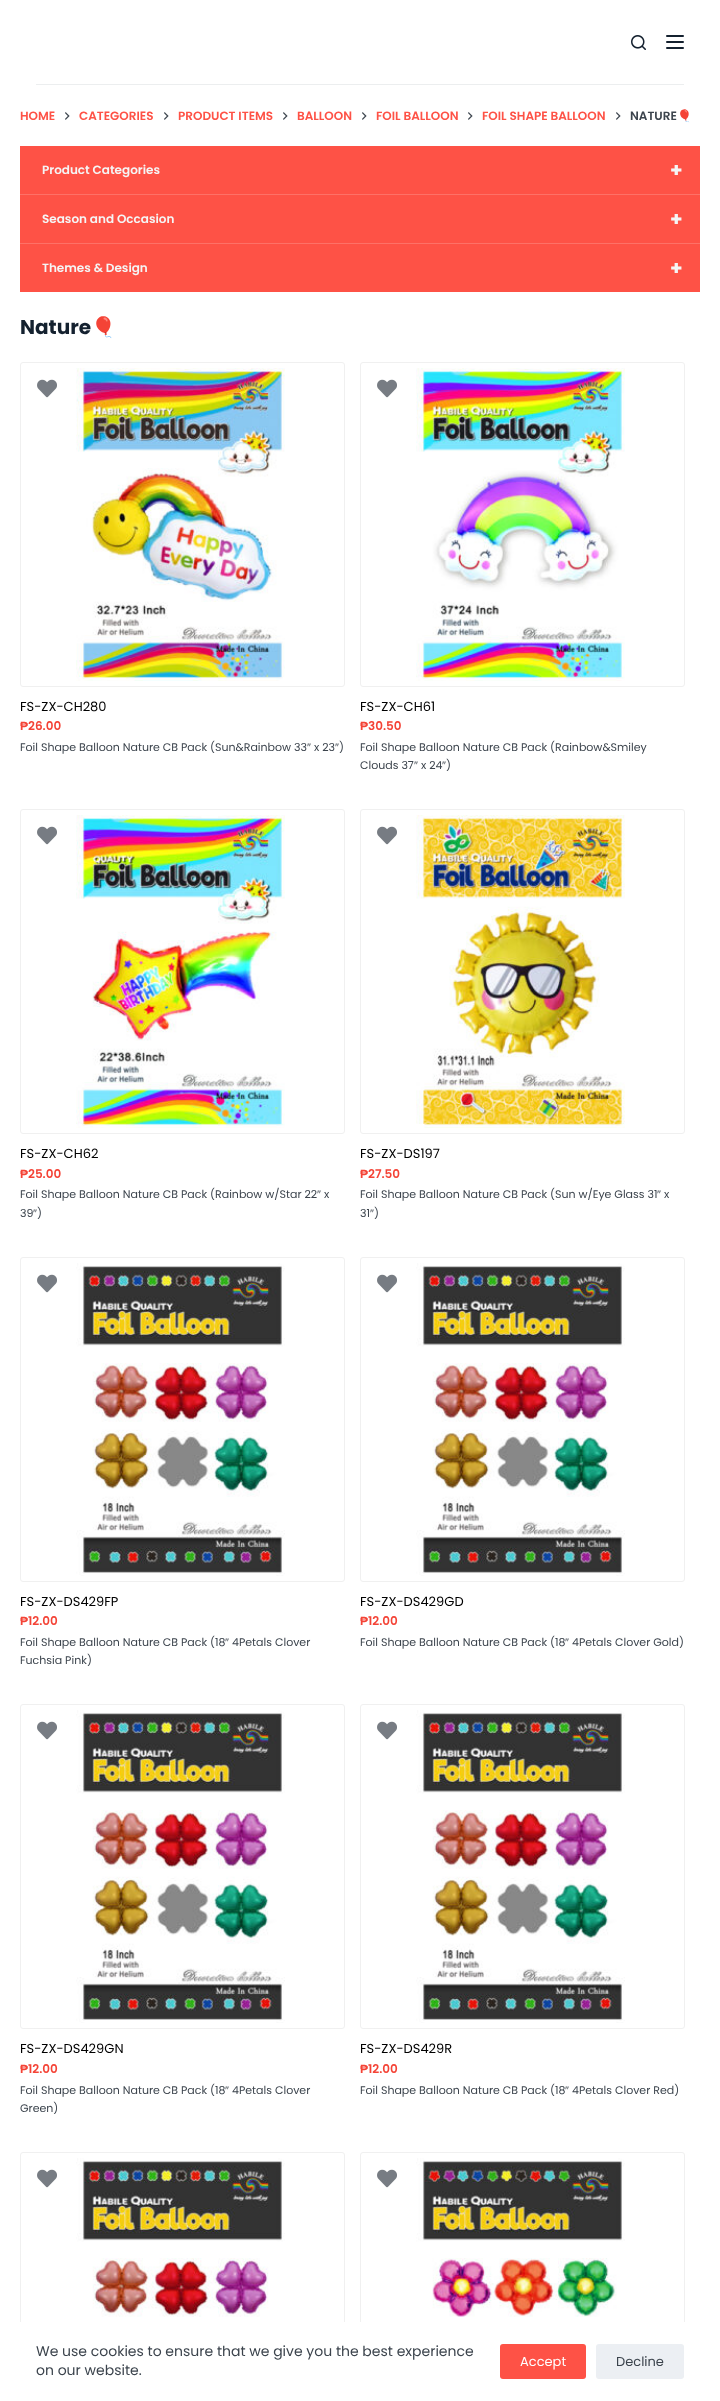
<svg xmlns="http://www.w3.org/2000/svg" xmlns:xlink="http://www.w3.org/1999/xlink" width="720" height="2401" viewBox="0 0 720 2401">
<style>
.cls-1{font:600 12px Poppins;fill:#fe5246}
.cls-2{font:600 12px Poppins;fill:#3c444d}
.cls-3{font:bold 12px Noto Color Emoji;fill:#3c444d}
.cls-4{font:600 12px Poppins;fill:#f5f5f5}
.cls-5{font:bold 20px Poppins;fill:#f5f5f5}
.cls-6{font:bold 20px Poppins;fill:#14212f}
.cls-7{font:bold 20px Noto Color Emoji;fill:#14212f}
.cls-8{font:13px Poppins;fill:#000000}
.cls-9{font:bold 12px Liberation Sans;fill:#f44336}
.cls-10{font:600 12px Poppins;fill:#f44336}
.cls-11{font:11px Poppins;fill:#3c444d}
.cls-12{font:11px Liberation Sans;fill:#3c444d}
.cls-13{font:14px Poppins;fill:#3c444d}
.cls-14{font:13px Poppins;fill:#ffffff}
.cls-15{font:13px Poppins;fill:#3c444d}
</style>
<rect width="100%" height="100%" fill="#ffffff"/>
<rect fill="#eceeef" x="36" y="84" width="648" height="1"/>
<image xlink:href="image0.png" x="631" y="35" width="15" height="15"/>
<rect fill="#14212f" x="666" y="35" width="18" height="2" rx="1"/>
<rect fill="#14212f" x="666" y="41" width="18" height="2" rx="1"/>
<rect fill="#14212f" x="666" y="47" width="18" height="2" rx="1"/>
<image xlink:href="image1.png" x="65" y="112" width="5" height="8"/>
<image xlink:href="image1.png" x="164" y="112" width="5" height="8"/>
<image xlink:href="image1.png" x="283" y="112" width="5" height="8"/>
<image xlink:href="image1.png" x="362" y="112" width="5" height="8"/>
<image xlink:href="image1.png" x="468" y="112" width="5" height="8"/>
<image xlink:href="image1.png" x="616" y="112" width="5" height="8"/>
<rect fill="#fe5246" x="20" y="146" width="680" height="146"/>
<rect fill="#fe7167" x="20" y="194" width="680" height="1"/>
<rect fill="#fe7167" x="20" y="243" width="680" height="1"/>
<rect fill="none" stroke="#f0f0f0" x="20.5" y="362.5" width="324" height="324" rx="2.5"/>
<image xlink:href="image2.png" x="37" y="379" width="20" height="19"/>
<image xlink:href="image3.png" x="76" y="368" width="209" height="313"/>
<rect fill="none" stroke="#f0f0f0" x="360.5" y="362.5" width="324" height="324" rx="2.5"/>
<image xlink:href="image2.png" x="377" y="379" width="20" height="19"/>
<image xlink:href="image4.png" x="416" y="368" width="209" height="313"/>
<rect fill="none" stroke="#f0f0f0" x="20.5" y="809.5" width="324" height="324" rx="2.5"/>
<image xlink:href="image2.png" x="37" y="826" width="20" height="19"/>
<image xlink:href="image5.png" x="76" y="815" width="209" height="313"/>
<rect fill="none" stroke="#f0f0f0" x="360.5" y="809.5" width="324" height="324" rx="2.5"/>
<image xlink:href="image2.png" x="377" y="826" width="20" height="19"/>
<image xlink:href="image6.png" x="416" y="815" width="209" height="313"/>
<rect fill="none" stroke="#f0f0f0" x="20.5" y="1257.5" width="324" height="324" rx="2.5"/>
<image xlink:href="image2.png" x="37" y="1274" width="20" height="19"/>
<image xlink:href="image7.png" x="76" y="1263" width="209" height="313"/>
<rect fill="none" stroke="#f0f0f0" x="360.5" y="1257.5" width="324" height="324" rx="2.5"/>
<image xlink:href="image2.png" x="377" y="1274" width="20" height="19"/>
<image xlink:href="image8.png" x="416" y="1263" width="209" height="313"/>
<rect fill="none" stroke="#f0f0f0" x="20.5" y="1704.5" width="324" height="324" rx="2.5"/>
<image xlink:href="image2.png" x="37" y="1721" width="20" height="19"/>
<image xlink:href="image7.png" x="76" y="1710" width="209" height="313"/>
<rect fill="none" stroke="#f0f0f0" x="360.5" y="1704.5" width="324" height="324" rx="2.5"/>
<image xlink:href="image2.png" x="377" y="1721" width="20" height="19"/>
<image xlink:href="image8.png" x="416" y="1710" width="209" height="313"/>
<rect fill="none" stroke="#f0f0f0" x="20.5" y="2152.5" width="324" height="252" rx="2.5"/>
<image xlink:href="image9.png" x="76" y="2158" width="209" height="164"/>
<image xlink:href="image2.png" x="37" y="2169" width="20" height="19"/>
<rect fill="none" stroke="#f0f0f0" x="360.5" y="2152.5" width="324" height="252" rx="2.5"/>
<image xlink:href="image10.png" x="416" y="2158" width="209" height="164"/>
<image xlink:href="image2.png" x="377" y="2169" width="20" height="19"/>
<rect fill="#ffffff" x="20" y="2322" width="665" height="79"/>
<rect fill="#fe5246" x="500" y="2344" width="86" height="35" rx="3"/>
<rect fill="#eceff3" x="596" y="2344" width="88" height="35" rx="3"/>
<text class="cls-1" x="20" y="120">HOME</text>
<text class="cls-1" x="79" y="120">CATEGORIES</text>
<text class="cls-1" x="178" y="120">PRODUCT ITEMS</text>
<text class="cls-1" x="297" y="120">BALLOON</text>
<text class="cls-1" x="376" y="120">FOIL BALLOON</text>
<text class="cls-1" x="482" y="120">FOIL SHAPE BALLOON</text>
<text class="cls-2" x="630" y="120">NATURE</text>
<text class="cls-3" x="677" y="120">🎈</text>
<text class="cls-4" x="42" y="174">Product Categories</text>
<text class="cls-5" x="670" y="177">+</text>
<text class="cls-4" x="42" y="223">Season and Occasion</text>
<text class="cls-5" x="670" y="226">+</text>
<text class="cls-4" x="42" y="272">Themes &amp; Design</text>
<text class="cls-5" x="670" y="275">+</text>
<text class="cls-6" x="20" y="334">Nature</text>
<text class="cls-7" x="91" y="334">🎈</text>
<text class="cls-8" x="20" y="711">FS-ZX-CH280</text>
<text class="cls-9" x="20" y="730">₱</text>
<text class="cls-10" x="28" y="730">26.00</text>
<text class="cls-11" x="20" y="751">Foil Shape Balloon Nature CB Pack (Sun&amp;Rainbow 33</text>
<text class="cls-12" x="307" y="751">″</text>
<text class="cls-11" x="314" y="751">x 23</text>
<text class="cls-12" x="335" y="751">″</text>
<text class="cls-11" x="339" y="751">)</text>
<text class="cls-8" x="360" y="711">FS-ZX-CH61</text>
<text class="cls-9" x="360" y="730">₱</text>
<text class="cls-10" x="368" y="730">30.50</text>
<text class="cls-11"><tspan x="360" y="751">Foil Shape Balloon Nature CB Pack (Rainbow&amp;Smiley</tspan><tspan x="360" y="769">Clouds 37</tspan></text>
<text class="cls-12" x="414" y="769">″</text>
<text class="cls-11" x="421" y="769">x 24</text>
<text class="cls-12" x="442" y="769">″</text>
<text class="cls-11" x="446" y="769">)</text>
<text class="cls-8" x="20" y="1158">FS-ZX-CH62</text>
<text class="cls-9" x="20" y="1178">₱</text>
<text class="cls-10" x="28" y="1178">25.00</text>
<text class="cls-11" x="20" y="1198">Foil Shape Balloon Nature CB Pack (Rainbow w/Star 22</text>
<text class="cls-12" x="317" y="1198">″</text>
<text class="cls-11" x="324" y="1198">x</text>
<text class="cls-11" x="20" y="1217">39</text>
<text class="cls-12" x="33" y="1217">″</text>
<text class="cls-11" x="37" y="1217">)</text>
<text class="cls-8" x="360" y="1158">FS-ZX-DS197</text>
<text class="cls-9" x="360" y="1178">₱</text>
<text class="cls-10" x="368" y="1178">27.50</text>
<text class="cls-11" x="360" y="1198">Foil Shape Balloon Nature CB Pack (Sun w/Eye Glass 31</text>
<text class="cls-12" x="657" y="1198">″</text>
<text class="cls-11" x="664" y="1198">x</text>
<text class="cls-11" x="360" y="1217">31</text>
<text class="cls-12" x="370" y="1217">″</text>
<text class="cls-11" x="374" y="1217">)</text>
<text class="cls-8" x="20" y="1606">FS-ZX-DS429FP</text>
<text class="cls-9" x="20" y="1625">₱</text>
<text class="cls-10" x="28" y="1625">12.00</text>
<text class="cls-11" x="20" y="1646">Foil Shape Balloon Nature CB Pack (18</text>
<text class="cls-12" x="225" y="1646">″</text>
<text class="cls-11" x="232" y="1646">4Petals Clover</text>
<text class="cls-11" x="20" y="1664">Fuchsia Pink)</text>
<text class="cls-8" x="360" y="1606">FS-ZX-DS429GD</text>
<text class="cls-9" x="360" y="1625">₱</text>
<text class="cls-10" x="368" y="1625">12.00</text>
<text class="cls-11" x="360" y="1646">Foil Shape Balloon Nature CB Pack (18</text>
<text class="cls-12" x="565" y="1646">″</text>
<text class="cls-11" x="572" y="1646">4Petals Clover Gold)</text>
<text class="cls-8" x="20" y="2053">FS-ZX-DS429GN</text>
<text class="cls-9" x="20" y="2073">₱</text>
<text class="cls-10" x="28" y="2073">12.00</text>
<text class="cls-11" x="20" y="2094">Foil Shape Balloon Nature CB Pack (18</text>
<text class="cls-12" x="225" y="2094">″</text>
<text class="cls-11" x="232" y="2094">4Petals Clover</text>
<text class="cls-11" x="20" y="2112">Green)</text>
<text class="cls-8" x="360" y="2053">FS-ZX-DS429R</text>
<text class="cls-9" x="360" y="2073">₱</text>
<text class="cls-10" x="368" y="2073">12.00</text>
<text class="cls-11" x="360" y="2094">Foil Shape Balloon Nature CB Pack (18</text>
<text class="cls-12" x="565" y="2094">″</text>
<text class="cls-11" x="572" y="2094">4Petals Clover Red)</text>
<text class="cls-13"><tspan x="36" y="2356">We use cookies to ensure that we give you the best experience</tspan><tspan x="36" y="2375">on our website.</tspan></text>
<text class="cls-14" x="520" y="2366">Accept</text>
<text class="cls-15" x="616" y="2366">Decline</text>
</svg>
